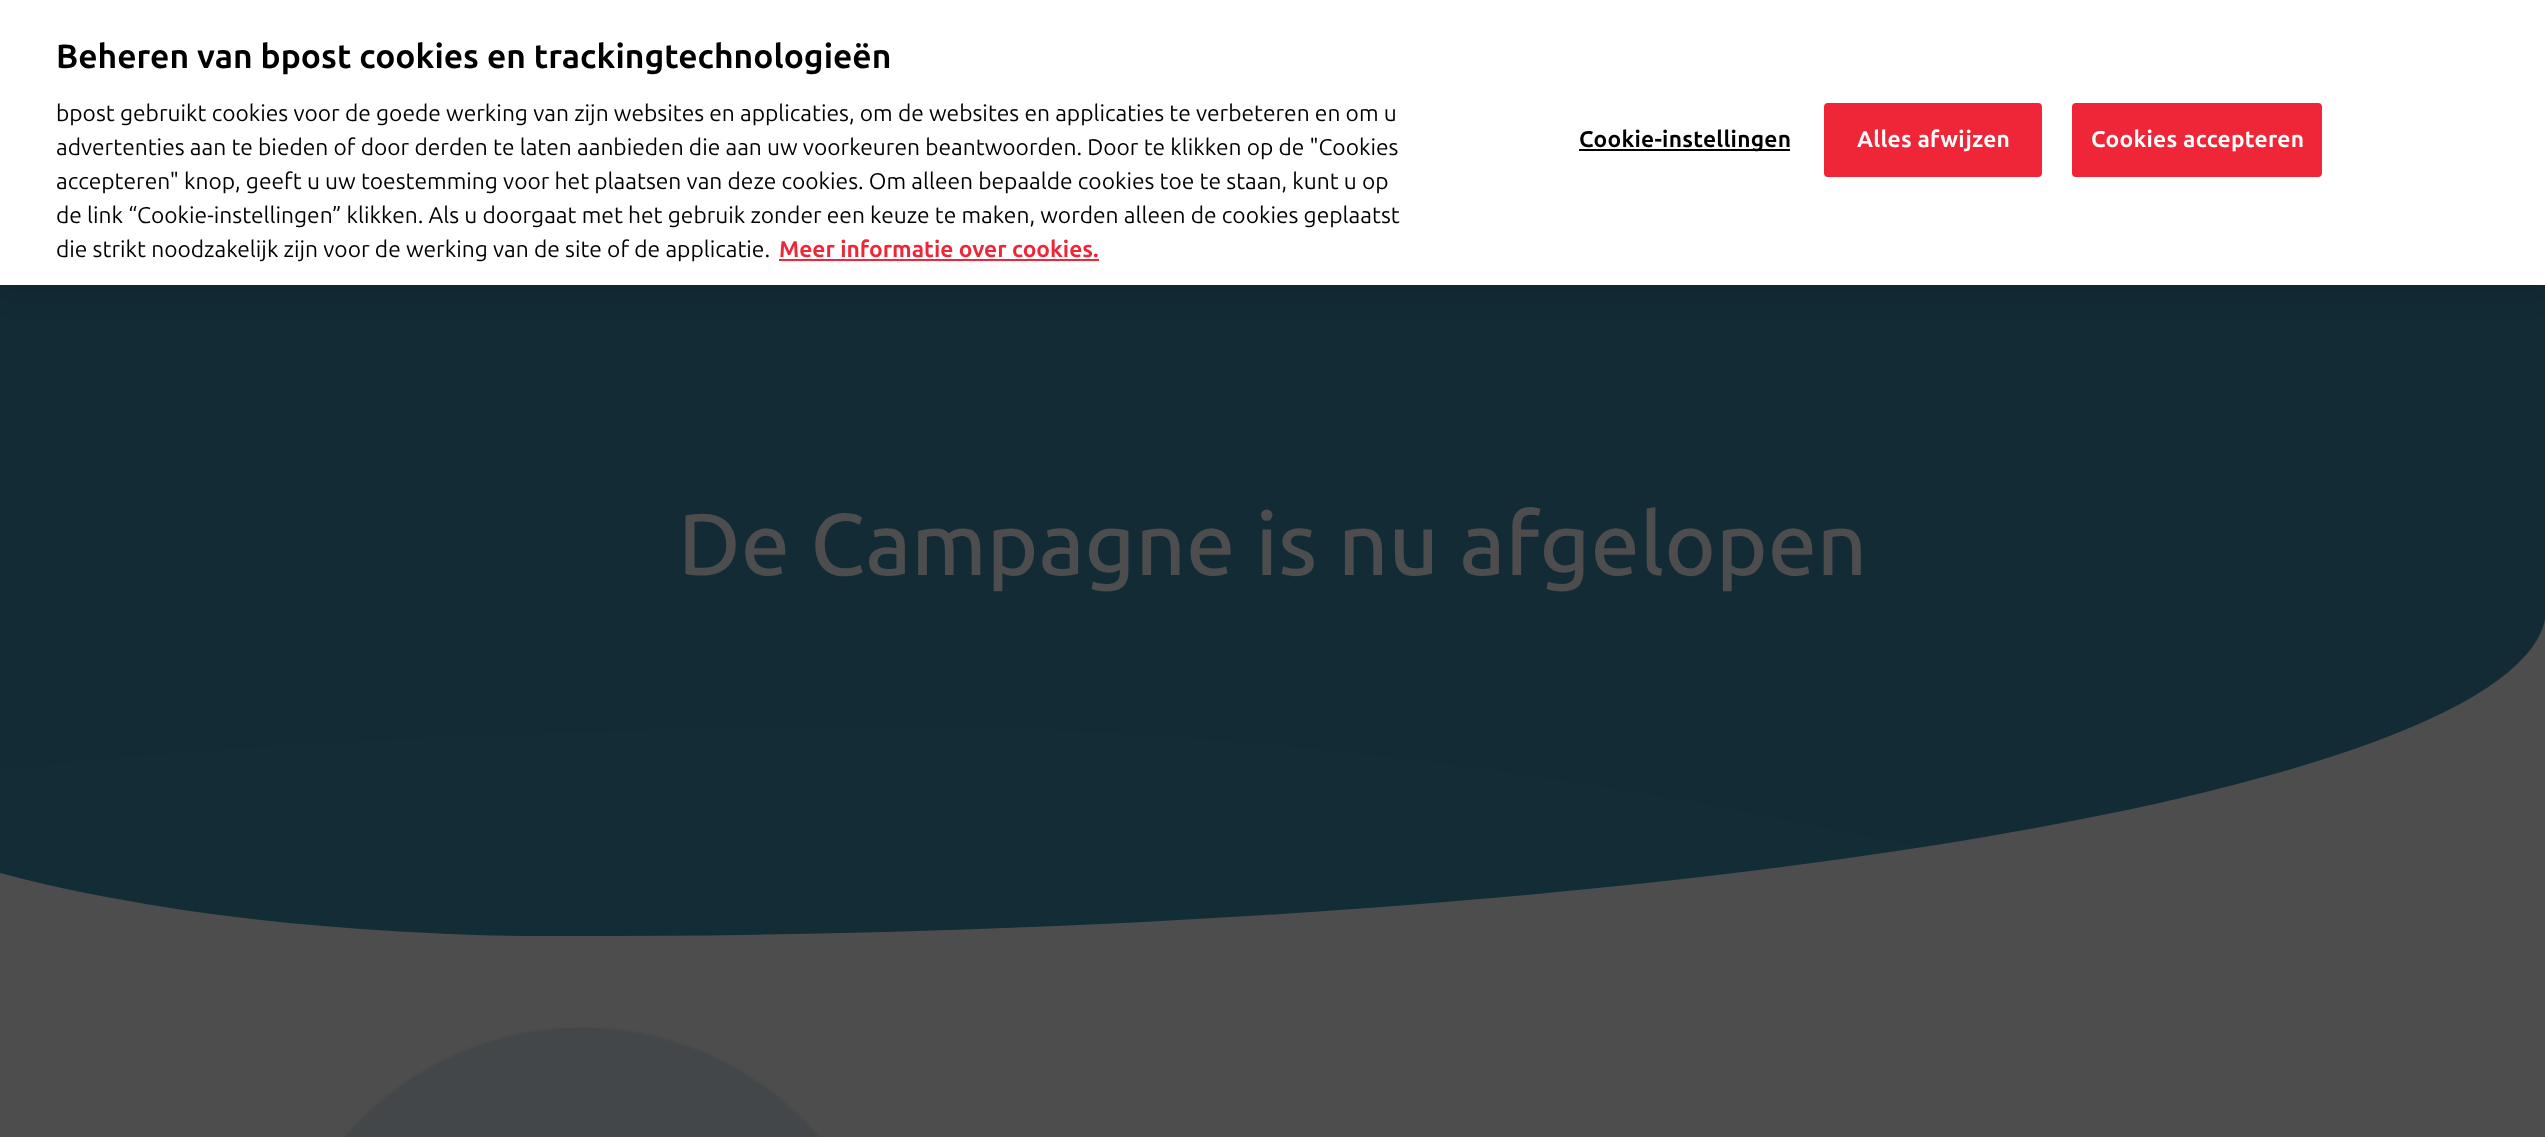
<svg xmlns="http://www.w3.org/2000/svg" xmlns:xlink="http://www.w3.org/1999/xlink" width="2545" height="1137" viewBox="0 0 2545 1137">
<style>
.cls-1{font:bold 33.6px Ubuntu;fill:#000000}
.cls-2{font:22.75px Ubuntu;fill:#000000}
.cls-3{font:bold 22.75px Ubuntu;fill:#ef2637}
.cls-4{font:bold 22.75px Ubuntu;letter-spacing:0.25px;fill:#000000}
.cls-5{font:bold 22.75px Ubuntu;letter-spacing:0.25px;fill:#ffffff}
.cls-6{font:500 87.5px Ubuntu;fill:#4d4d4d}
</style>
<rect width="100%" height="100%" fill="#4d4d4d"/>
<image xlink:href="image0.png" x="0" y="285" width="2545" height="651"/>
<rect fill="#000000" fill-opacity="0.2" filter="blur(16px)" x="0" y="0" width="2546" height="285"/>
<rect fill="#ffffff" x="0" y="0" width="2545" height="285"/>
<rect fill="#ef2637" x="779" y="259" width="320" height="2"/>
<rect fill="#000000" x="1579" y="149" width="211" height="2"/>
<rect fill="#ef2637" stroke="#ef2637" stroke-width="2" x="1825" y="104" width="216" height="72" rx="3"/>
<rect fill="#ef2637" stroke="#ef2637" stroke-width="2" x="2073" y="104" width="248" height="72" rx="3"/>
<image xlink:href="image1.png" x="344" y="1027" width="476" height="110"/>
<text class="cls-1" x="56" y="68">Beheren van bpost cookies en trackingtechnologieën</text>
<text class="cls-2"><tspan x="56" y="121">bpost gebruikt cookies voor de goede werking van zijn websites en applicaties, om de websites en applicaties te verbeteren en om u</tspan><tspan x="56" y="155">advertenties aan te bieden of door derden te laten aanbieden die aan uw voorkeuren beantwoorden. Door te klikken op de "Cookies</tspan><tspan x="56" y="189">accepteren" knop, geeft u uw toestemming voor het plaatsen van deze cookies. Om alleen bepaalde cookies toe te staan, kunt u op</tspan><tspan x="56" y="223">de link “Cookie-instellingen” klikken. Als u doorgaat met het gebruik zonder een keuze te maken, worden alleen de cookies geplaatst</tspan><tspan x="56" y="257">die strikt noodzakelijk zijn voor de werking van de site of de applicatie.</tspan></text>
<text class="cls-3" x="779" y="257">Meer informatie over cookies.</text>
<text class="cls-4" x="1579" y="147">Cookie-instellingen</text>
<text class="cls-5" x="1857" y="147">Alles afwijzen</text>
<text class="cls-5" x="2091" y="147">Cookies accepteren</text>
<text class="cls-6" x="678" y="575">De Campagne is nu afgelopen</text>
</svg>
